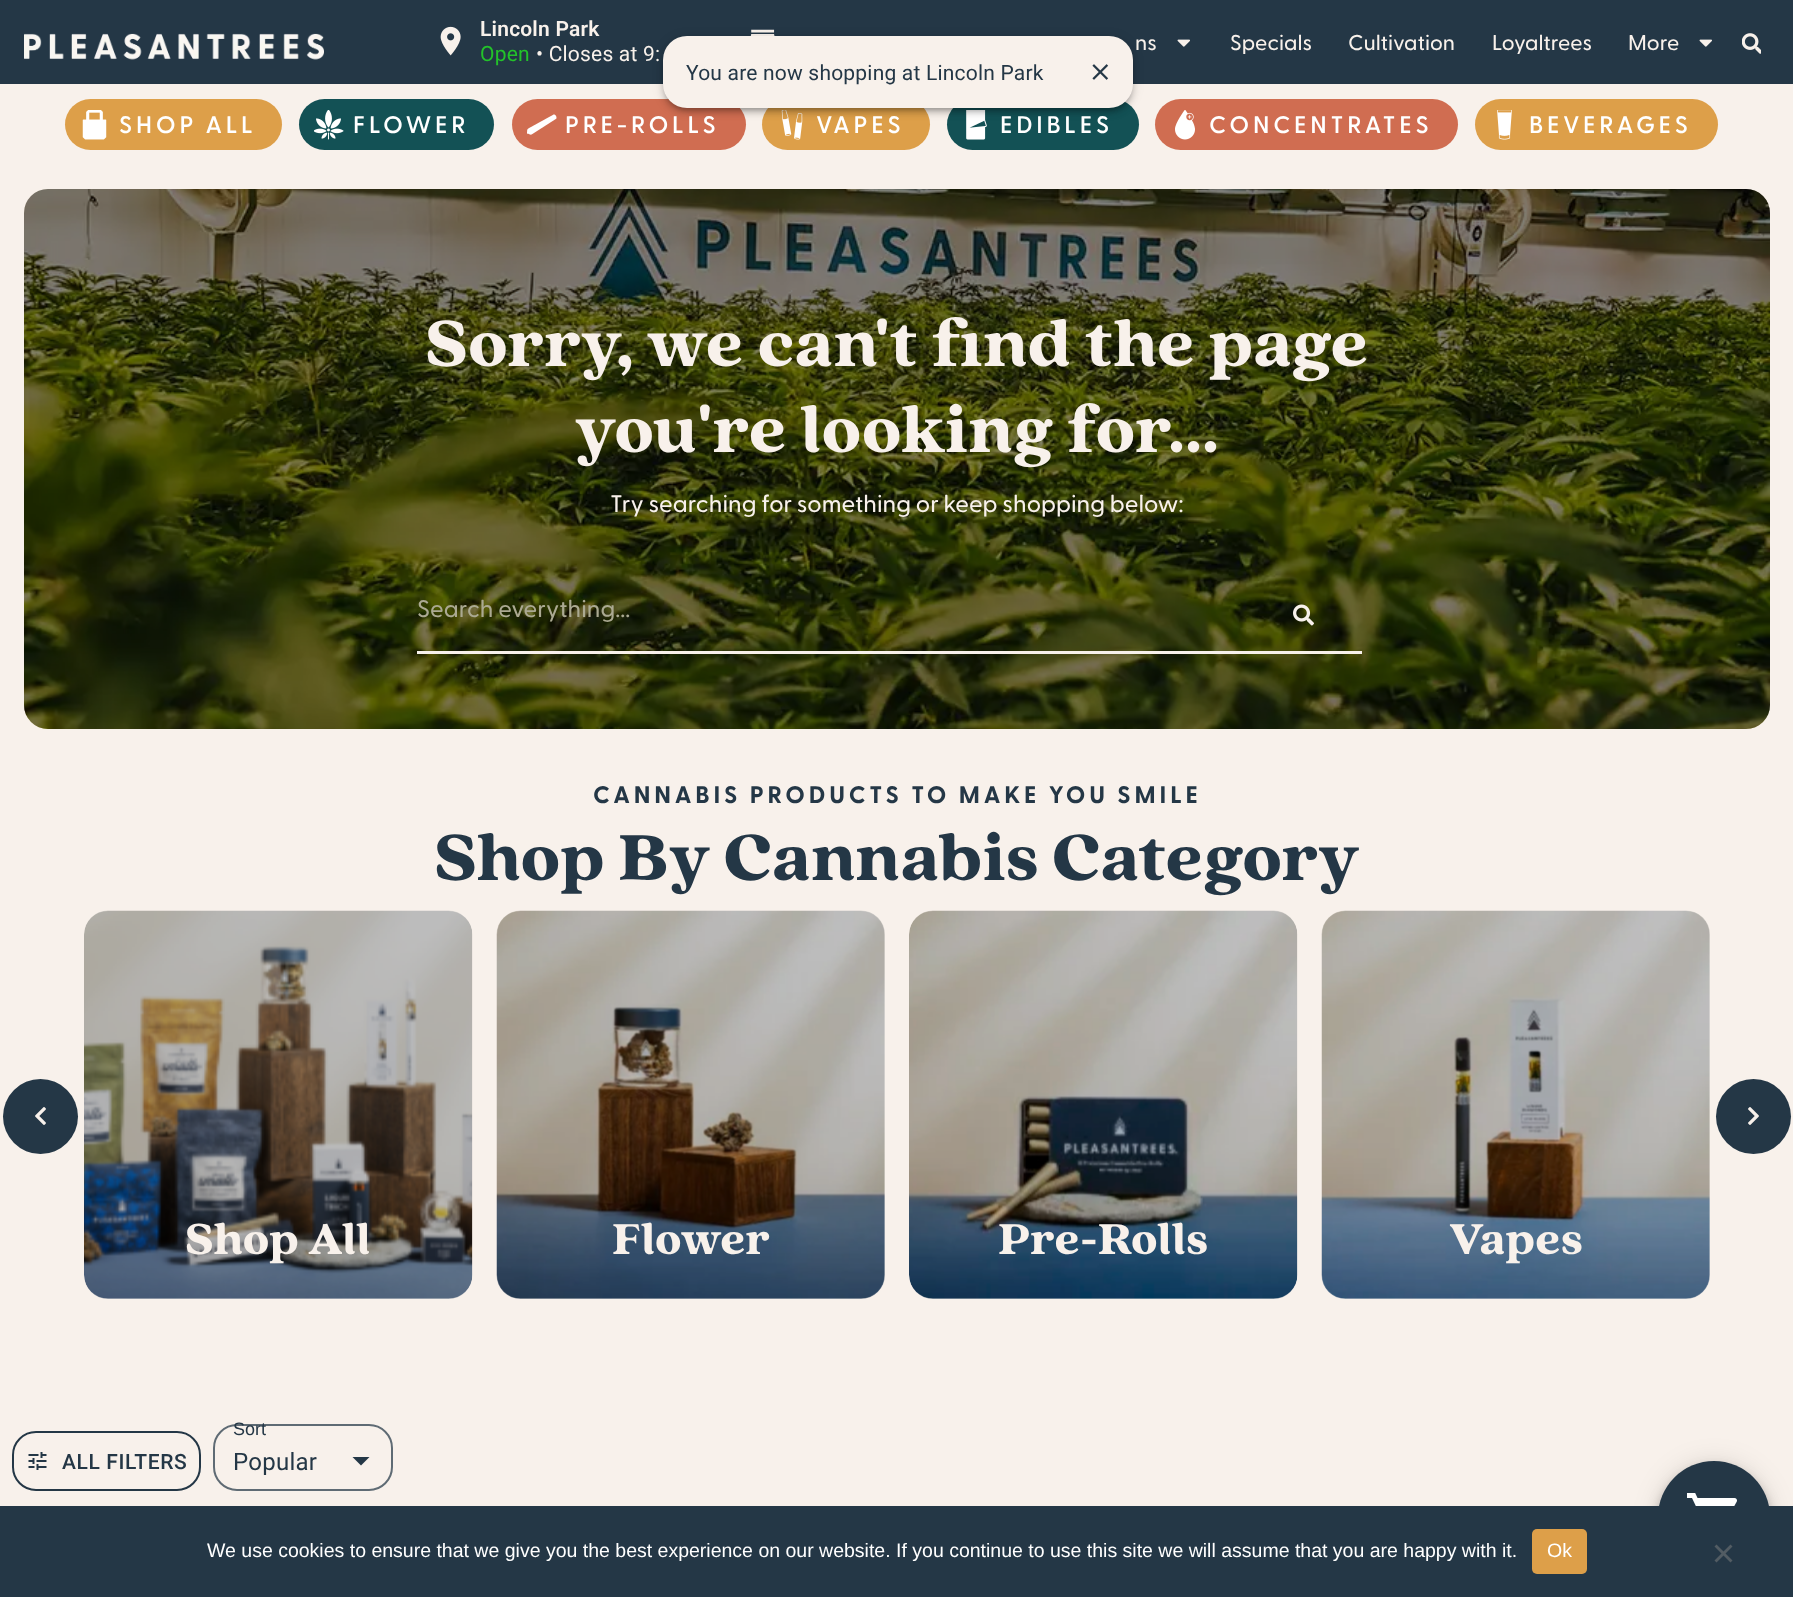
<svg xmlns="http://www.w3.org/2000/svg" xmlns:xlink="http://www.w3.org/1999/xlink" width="1793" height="1597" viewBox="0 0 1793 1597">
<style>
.cls-1{font:600 21px Roboto;letter-spacing:0.2px;fill:#f8f1eb}
.cls-2{font:21px Roboto;letter-spacing:0.2px;fill:#23c22a}
.cls-3{font:21px Roboto;letter-spacing:0.2px;fill:#f8f1eb}
.cls-4{font:500 21.5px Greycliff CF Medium;fill:#f8f1eb}
.cls-5{font:600 24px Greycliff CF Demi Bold;letter-spacing:3.75px;fill:#ffffff}
.cls-6{font:21px Roboto;letter-spacing:0.2px;fill:#243746}
.cls-7{font:900 72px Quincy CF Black;fill:#f8f1eb}
.cls-8{font:500 24px Greycliff CF Medium;fill:#f8f1eb}
.cls-9{font:500 24px Greycliff CF Medium;fill:#aba992}
.cls-10{font:bold 24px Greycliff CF;letter-spacing:3.85px;fill:#243746}
.cls-11{font:900 72px Quincy CF Black;fill:#243746}
.cls-12{font:900 48px Quincy CF Black;fill:#f8f1eb}
.cls-13{font:500 21px Roboto;letter-spacing:0.6px;fill:#243746}
.cls-14{font:18px Liberation Sans;fill:#243746}
.cls-15{font:24px Roboto;letter-spacing:0.25px;fill:#243746}
.cls-16{font:19.5px Liberation Sans;fill:#ffffff}
</style>
<rect width="100%" height="100%" fill="#f8f1eb"/>
<rect fill="#243746" x="0" y="0" width="1793" height="84"/>
<image xlink:href="image0.png" x="24" y="33" width="300" height="27"/>
<image xlink:href="image1.png" x="440" y="26" width="21" height="30"/>
<image xlink:href="image2.png" x="750" y="29" width="25" height="7"/>
<image xlink:href="image3.png" x="1177" y="39" width="13" height="8"/>
<image xlink:href="image3.png" x="1699" y="39" width="13" height="8"/>
<image xlink:href="image4.png" x="1742" y="33" width="19" height="21"/>
<rect fill="#dd9f49" x="65" y="99" width="217" height="51" rx="25.5"/>
<image xlink:href="image5.png" x="82" y="110" width="25" height="30"/>
<rect fill="#135155" x="299" y="99" width="195" height="51" rx="25.5"/>
<image xlink:href="image6.png" x="314" y="110" width="30" height="30"/>
<rect fill="#d06d51" x="512" y="99" width="234" height="51" rx="25.5"/>
<image xlink:href="image7.png" x="527" y="114" width="30" height="21"/>
<rect fill="#dd9f49" x="762" y="99" width="168" height="51" rx="25.5"/>
<image xlink:href="image8.png" x="781" y="110" width="22" height="30"/>
<rect fill="#135155" x="947" y="99" width="192" height="51" rx="25.5"/>
<image xlink:href="image9.png" x="966" y="110" width="21" height="30"/>
<rect fill="#d06d51" x="1155" y="99" width="303" height="51" rx="25.5"/>
<image xlink:href="image10.png" x="1175" y="110" width="20" height="30"/>
<rect fill="#dd9f49" x="1475" y="99" width="243" height="51" rx="25.5"/>
<image xlink:href="image11.png" x="1497" y="110" width="15" height="30"/>
<rect fill="#000000" fill-opacity="0.12" filter="blur(6px)" x="663" y="38" width="470" height="72" rx="24"/>
<rect fill="#000000" fill-opacity="0.14" filter="blur(3px)" x="663" y="41" width="470" height="72" rx="24"/>
<rect fill="#000000" fill-opacity="0.2" filter="blur(2px)" x="666" y="44" width="464" height="66" rx="21"/>
<rect fill="#f8f1eb" x="663" y="36" width="470" height="72" rx="24"/>
<image xlink:href="image12.png" x="1092" y="64" width="17" height="16"/>
<rect fill="#000000" fill-opacity="0.12" filter="blur(13.5px)" x="1658" y="1463" width="112" height="112" rx="56"/>
<rect fill="#000000" fill-opacity="0.14" filter="blur(7.5px)" x="1658" y="1470" width="112" height="113" rx="56"/>
<rect fill="#000000" fill-opacity="0.2" filter="blur(4px)" x="1659" y="1467" width="110" height="110" rx="55"/>
<rect fill="#243746" x="1658" y="1461" width="112" height="113" rx="56"/>
<image xlink:href="image13.png" x="1687" y="1493" width="50" height="13"/>
<image xlink:href="image14.png" x="24" y="189" width="1746" height="540"/>
<rect fill="#000000" fill-opacity="0.5" x="24" y="189" width="1746" height="540" rx="24"/>
<rect fill="#f8f1eb" x="417" y="651" width="945" height="3"/>
<image xlink:href="image15.png" x="1293" y="604" width="21" height="22"/>
<circle fill="#243746" cx="40.5" cy="1116.5" r="37.5"/>
<image xlink:href="image16.png" x="35" y="1107" width="11" height="18"/>
<circle fill="#243746" cx="1753.5" cy="1116.5" r="37.5"/>
<image xlink:href="image17.png" x="1748" y="1107" width="11" height="18"/>
<image xlink:href="image18.png" x="84" y="910" width="389" height="389"/>
<image xlink:href="image19.png" x="496" y="910" width="389" height="389"/>
<image xlink:href="image20.png" x="909" y="910" width="389" height="389"/>
<image xlink:href="image21.png" x="1321" y="910" width="389" height="389"/>
<rect fill="none" stroke="#243746" stroke-width="2" x="13" y="1432" width="187" height="58" rx="23"/>
<image xlink:href="image22.png" x="28" y="1452" width="19" height="18"/>
<path fill="#243746" d="M352.5 1457L361 1465.5L369.5 1457Z"/>
<rect fill="none" stroke="#5f6b74" stroke-width="2" x="214" y="1425" width="178" height="65" rx="23"/>
<rect fill="#243746" x="0" y="1506" width="1793" height="91"/>
<rect fill="#dd9f49" x="1532" y="1529" width="55" height="45" rx="5"/>
<path fill="#525c63" d="M1730.5 1544.5L1732.5 1546.5L1716.5 1562.5L1714.5 1560.5Z"/>
<path fill="#525c63" d="M1714.5 1546.5L1716.5 1544.5L1732.5 1560.5L1730.5 1562.5Z"/>
<text class="cls-1" x="480" y="36">Lincoln Park</text>
<text class="cls-2" x="480" y="61">Open</text>
<text class="cls-3" x="536" y="61">• Closes at 9:</text>
<text class="cls-4" x="1135" y="50">ns</text>
<text class="cls-4" x="1230" y="50">Specials</text>
<text class="cls-4" x="1348" y="50">Cultivation</text>
<text class="cls-4" x="1492" y="50">Loyaltrees</text>
<text class="cls-4" x="1628" y="50">More</text>
<text class="cls-5" x="119" y="133">SHOP ALL</text>
<text class="cls-5" x="353" y="133">FLOWER</text>
<text class="cls-5" x="565" y="133">PRE-ROLLS</text>
<text class="cls-5" x="816" y="133">VAPES</text>
<text class="cls-5" x="1000" y="133">EDIBLES</text>
<text class="cls-5" x="1209" y="133">CONCENTRATES</text>
<text class="cls-5" x="1529" y="133">BEVERAGES</text>
<text class="cls-6" x="686" y="80">You are now shopping at Lincoln Park</text>
<text class="cls-7" x="425" y="366">Sorry, we can't find the page</text>
<text class="cls-7" x="575" y="452">you're looking for...</text>
<text class="cls-8" x="610" y="512">Try searching for something or keep shopping below:</text>
<text class="cls-9" x="417" y="617">Search everything...</text>
<text class="cls-10" x="593" y="803">CANNABIS PRODUCTS TO MAKE YOU SMILE</text>
<text class="cls-11" x="434" y="880">Shop By Cannabis Category</text>
<text class="cls-12" x="185" y="1254">Shop All</text>
<text class="cls-12" x="612" y="1254">Flower</text>
<text class="cls-12" x="998" y="1254">Pre-Rolls</text>
<text class="cls-12" x="1449" y="1254">Vapes</text>
<text class="cls-13" x="62" y="1469">ALL FILTERS</text>
<text class="cls-14" x="233" y="1435">Sort</text>
<text class="cls-15" x="233" y="1470">Popular</text>
<text class="cls-16" x="207" y="1557">We use cookies to ensure that we give you the best experience on our website. If you continue to use this site we will assume that you are happy with it.</text>
<text class="cls-16" x="1547" y="1557">Ok</text>
</svg>
